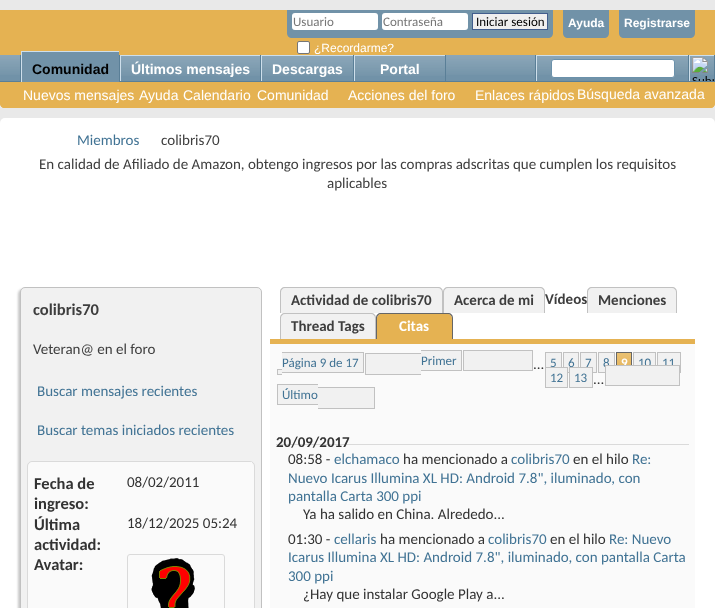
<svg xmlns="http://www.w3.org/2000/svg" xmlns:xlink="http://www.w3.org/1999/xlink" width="715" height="608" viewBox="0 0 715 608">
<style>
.cls-1{font:13px Carlito;fill:#777777}
.cls-2{font:13px Carlito;fill:#000000}
.cls-3{font:12px Liberation Sans;fill:#ffffff}
.cls-4{font:bold 12px Liberation Sans;fill:#ffffff}
.cls-5{font:bold 14px Liberation Sans;fill:#000000}
.cls-6{font:bold 14px Liberation Sans;fill:#ffffff}
.cls-7{font:14px Liberation Sans;fill:#ffffff}
.cls-8{font:15px Carlito;fill:#417394}
.cls-9{font:15px Carlito;fill:#3e3e3e}
.cls-10{font:bold 16.5px Carlito;fill:#3e3e3e}
.cls-11{font:bold 16.5px Carlito;fill:#333333}
.cls-12{font:15px Carlito;fill:#333333}
.cls-13{font:bold 15px Carlito;fill:#3e3e3e}
.cls-14{font:bold 15px Carlito;fill:#ffffff}
.cls-15{font:13px Carlito;fill:#417394}
.cls-16{font:bold 13px Carlito;fill:#ffffff}
.cls-17{font:bold 15px Carlito;fill:#333333}
</style>
<rect width="100%" height="100%" fill="#e9e9e9"/>
<path fill="#e5b252" d="M0 10H715V103C715 106 713 108 710 108H5C2 108 0 106 0 103Z"/>
<path fill="#7192a8" d="M287 10H553V33C553 36 551 38 548 38H292C289 38 287 36 287 33Z"/>
<rect fill="#ffffff" x="292" y="13" width="86" height="17" rx="3"/>
<rect fill="#ffffff" x="382" y="13" width="86" height="17" rx="3"/>
<rect fill="#efefef" stroke="#415d8d" x="472.5" y="13.5" width="75" height="16"/>
<rect fill="#ffffff" stroke="#767676" x="297.5" y="41.5" width="12" height="12" rx="1.5"/>
<path fill="#7192a8" d="M563 10H609V33C609 36 607 38 604 38H568C565 38 563 36 563 33Z"/>
<path fill="#7192a8" d="M619 10H695V33C695 36 693 38 690 38H624C621 38 619 36 619 33Z"/>
<path fill="#e5b252" d="M0 55H715V103C715 106 713 108 710 108H5C2 108 0 106 0 103Z"/>
<rect fill="#7192a8" x="0" y="55" width="714" height="26"/>
<image xlink:href="image0.png" x="0" y="55" width="714" height="20"/>
<rect fill="#5a7f97" x="119" y="55" width="1" height="26"/>
<rect fill="#5a7f97" x="20" y="55" width="1" height="26"/>
<rect fill="#5a7f97" x="260" y="55" width="1" height="27"/>
<rect fill="#cedfeb" x="120" y="55" width="140" height="1"/>
<rect fill="#cedfeb" x="120" y="55" width="1" height="27"/>
<rect fill="#5a7f97" x="353" y="55" width="1" height="27"/>
<rect fill="#cedfeb" x="261" y="55" width="92" height="1"/>
<rect fill="#cedfeb" x="261" y="55" width="1" height="27"/>
<rect fill="#5a7f97" x="445" y="55" width="1" height="27"/>
<rect fill="#cedfeb" x="354" y="55" width="91" height="1"/>
<rect fill="#cedfeb" x="354" y="55" width="1" height="27"/>
<rect fill="#5a7f97" x="0" y="81" width="715" height="1"/>
<rect fill="#7192a8" x="22" y="52" width="97" height="30"/>
<rect fill="#cedfeb" x="21" y="51" width="98" height="1"/>
<rect fill="#cedfeb" x="21" y="51" width="1" height="31"/>
<rect fill="#7192a8" x="121" y="56" width="139" height="19"/>
<image xlink:href="image1.png" x="121" y="56" width="139" height="20"/>
<rect fill="#7192a8" x="262" y="56" width="91" height="19"/>
<image xlink:href="image2.png" x="262" y="56" width="91" height="20"/>
<rect fill="#7192a8" x="355" y="56" width="90" height="19"/>
<image xlink:href="image3.png" x="355" y="56" width="90" height="20"/>
<rect fill="#5a7f97" x="535" y="55" width="1" height="26"/>
<rect fill="#cedfeb" x="536" y="55" width="152" height="1"/>
<rect fill="#cedfeb" x="536" y="55" width="1" height="26"/>
<rect fill="#ffffff" stroke="#6b91ab" x="551.5" y="59.5" width="123" height="18" rx="2.5"/>
<rect fill="#5a7f97" x="714" y="55" width="1" height="26"/>
<rect fill="#5a7f97" x="688" y="55" width="1" height="26"/>
<rect fill="#cedfeb" x="689" y="55" width="25" height="1"/>
<rect fill="#cedfeb" x="689" y="55" width="1" height="26"/>
<image xlink:href="image4.png" x="692" y="57" width="22" height="24"/>
<rect fill="#ffffff" x="0" y="118" width="715" height="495" rx="5"/>
<rect fill="#c8c8c8" filter="blur(1px)" x="18" y="289" width="242" height="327" rx="5"/>
<rect fill="#f1f1f1" stroke="#c1c1c1" x="20.5" y="287.5" width="241" height="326" rx="4.5"/>
<rect fill="none" stroke="#dadada" x="27.5" y="461.5" width="227" height="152" rx="4.5"/>
<rect fill="#fafafa" x="28" y="462" width="226" height="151" rx="5"/>
<rect fill="#fafafa" x="251" y="462" width="1" height="1"/>
<rect fill="none" stroke="#dadada" x="127.5" y="554.5" width="97" height="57" rx="2.5"/>
<image xlink:href="image5.png" x="151" y="558" width="44" height="50"/>
<path fill="#f1f1f1" d="M285 288H438C440 288 442 290 442 292V313H281V292C281 290 283 288 285 288Z"/>
<path fill="#c1c1c1" fill-rule="evenodd" d="M285 287H438C441 287 443 289 443 292V313H280V292C280 289 282 287 285 287ZM285 288H438C440 288 442 290 442 292V313H281V292C281 290 283 288 285 288Z"/>
<path fill="#f1f1f1" d="M448 288H540C542 288 544 290 544 292V313H444V292C444 290 446 288 448 288Z"/>
<path fill="#c1c1c1" fill-rule="evenodd" d="M448 287H540C543 287 545 289 545 292V313H443V292C443 289 445 287 448 287ZM448 288H540C542 288 544 290 544 292V313H444V292C444 290 446 288 448 288Z"/>
<path fill="#f1f1f1" d="M592 288H672C674 288 676 290 676 292V313H588V292C588 290 590 288 592 288Z"/>
<path fill="#c1c1c1" fill-rule="evenodd" d="M592 287H672C675 287 677 289 677 292V313H587V292C587 289 589 287 592 287ZM592 288H672C674 288 676 290 676 292V313H588V292C588 290 590 288 592 288Z"/>
<path fill="#f1f1f1" d="M285 314H371C373 314 375 316 375 318V339H281V318C281 316 283 314 285 314Z"/>
<path fill="#c1c1c1" fill-rule="evenodd" d="M285 313H371C374 313 376 315 376 318V339H280V318C280 315 282 313 285 313ZM285 314H371C373 314 375 316 375 318V339H281V318C281 316 283 314 285 314Z"/>
<path fill="#e5b252" d="M381 314H448C450 314 452 316 452 318V339H377V318C377 316 379 314 381 314Z"/>
<path fill="#666666" fill-rule="evenodd" d="M381 313H448C451 313 453 315 453 318V339H376V318C376 315 378 313 381 313ZM381 314H448C450 314 452 316 452 318V339H377V318C377 316 379 314 381 314Z"/>
<rect fill="#e5b252" x="270" y="339" width="425" height="5"/>
<rect fill="#fafafa" x="270" y="344" width="425" height="264"/>
<rect fill="#f1f1f1" x="278" y="369" width="4" height="6"/>
<rect fill="#c1c1c1" x="277" y="369" width="5" height="1"/>
<rect fill="#c1c1c1" x="277" y="374" width="5" height="1"/>
<rect fill="#c1c1c1" x="277" y="369" width="1" height="6"/>
<rect fill="#f1f1f1" x="282" y="353" width="81" height="19"/>
<rect fill="#c1c1c1" x="282" y="352" width="82" height="1"/>
<rect fill="#c1c1c1" x="363" y="352" width="1" height="21"/>
<rect fill="#c1c1c1" x="282" y="372" width="82" height="1"/>
<rect fill="#f1f1f1" x="366" y="354" width="55" height="20"/>
<rect fill="#c1c1c1" x="365" y="353" width="56" height="1"/>
<rect fill="#c1c1c1" x="365" y="374" width="56" height="1"/>
<rect fill="#c1c1c1" x="365" y="353" width="1" height="22"/>
<rect fill="#f1f1f1" x="421" y="351" width="40" height="19"/>
<rect fill="#c1c1c1" x="421" y="350" width="41" height="1"/>
<rect fill="#c1c1c1" x="461" y="350" width="1" height="21"/>
<rect fill="#c1c1c1" x="421" y="370" width="41" height="1"/>
<rect fill="#f1f1f1" stroke="#c1c1c1" x="463.5" y="350.5" width="69" height="20"/>
<rect fill="#f1f1f1" x="546" y="353" width="15" height="14"/>
<rect fill="none" stroke="#c1c1c1" x="545.5" y="352.5" width="16" height="20"/>
<rect fill="#f1f1f1" stroke="#c1c1c1" x="563.5" y="352.5" width="15" height="20"/>
<rect fill="#f1f1f1" stroke="#c1c1c1" x="580.5" y="352.5" width="16" height="20"/>
<rect fill="#f1f1f1" stroke="#c1c1c1" x="598.5" y="352.5" width="16" height="20"/>
<rect fill="#e5b252" x="617" y="353" width="14" height="12"/>
<image xlink:href="image6.png" x="617" y="353" width="14" height="12"/>
<rect fill="none" stroke="#666666" x="616.5" y="352.5" width="15" height="20"/>
<rect fill="#f1f1f1" x="634" y="353" width="21" height="12"/>
<rect fill="none" stroke="#c1c1c1" x="633.5" y="352.5" width="22" height="20"/>
<rect fill="#f1f1f1" x="658" y="353" width="22" height="12"/>
<rect fill="none" stroke="#c1c1c1" x="657.5" y="352.5" width="23" height="20"/>
<rect fill="#f1f1f1" x="278" y="385" width="40" height="19"/>
<rect fill="#c1c1c1" x="277" y="384" width="41" height="1"/>
<rect fill="#c1c1c1" x="277" y="404" width="41" height="1"/>
<rect fill="#c1c1c1" x="277" y="384" width="1" height="21"/>
<rect fill="#f1f1f1" x="318" y="388" width="56" height="20"/>
<rect fill="#c1c1c1" x="318" y="387" width="57" height="1"/>
<rect fill="#c1c1c1" x="374" y="387" width="1" height="22"/>
<rect fill="#c1c1c1" x="318" y="408" width="57" height="1"/>
<rect fill="#dadada" x="276" y="444" width="413" height="1"/>
<text class="cls-1" x="293" y="26">Usuario</text>
<text class="cls-1" x="383" y="26">Contraseña</text>
<text class="cls-2" x="476" y="26">Iniciar sesión</text>
<text class="cls-3" x="314" y="52">¿Recordarme?</text>
<text class="cls-4" x="568" y="27">Ayuda</text>
<text class="cls-4" x="624" y="27">Registrarse</text>
<text class="cls-5" x="32" y="74">Comunidad</text>
<text class="cls-6" x="131" y="74">Últimos mensajes</text>
<text class="cls-6" x="272" y="74">Descargas</text>
<text class="cls-6" x="380" y="74">Portal</text>
<text class="cls-7" x="23" y="100">Nuevos mensajes</text>
<text class="cls-7" x="139" y="100">Ayuda</text>
<text class="cls-7" x="183" y="100">Calendario</text>
<text class="cls-7" x="257" y="100">Comunidad</text>
<text class="cls-7" x="348" y="100">Acciones del foro</text>
<text class="cls-7" x="475" y="100">Enlaces rápidos</text>
<text class="cls-7" x="577" y="99">Búsqueda avanzada</text>
<text class="cls-8" x="77" y="145">Miembros</text>
<text class="cls-9" x="161" y="145">colibris70</text>
<text class="cls-9" x="39" y="169">En calidad de Afiliado de Amazon, obtengo ingresos por las compras adscritas que cumplen los requisitos</text>
<text class="cls-9" x="327" y="188">aplicables</text>
<text class="cls-10" x="33" y="315">colibris70</text>
<text class="cls-9" x="33" y="354">Veteran@ en el foro</text>
<text class="cls-8" x="37" y="396">Buscar mensajes recientes</text>
<text class="cls-8" x="37" y="435">Buscar temas iniciados recientes</text>
<text class="cls-11"><tspan x="34" y="489">Fecha de</tspan><tspan x="34" y="509">ingreso:</tspan></text>
<text class="cls-12" x="127" y="487">08/02/2011</text>
<text class="cls-11"><tspan x="34" y="530">Última</tspan><tspan x="34" y="550">actividad:</tspan></text>
<text class="cls-12" x="127" y="528">18/12/2025 05:24</text>
<text class="cls-11" x="34" y="570">Avatar:</text>
<text class="cls-13" x="291" y="305">Actividad de colibris70</text>
<text class="cls-13" x="454" y="305">Acerca de mi</text>
<text class="cls-13" x="545" y="304">Vídeos</text>
<text class="cls-13" x="598" y="305">Menciones</text>
<text class="cls-13" x="291" y="331">Thread Tags</text>
<text class="cls-14" x="399" y="331">Citas</text>
<text class="cls-15" x="282" y="367">Página 9 de 17</text>
<text class="cls-15" x="421" y="365">Primer</text>
<text class="cls-15" x="550" y="367">5</text>
<text class="cls-15" x="568" y="367">6</text>
<text class="cls-15" x="585" y="367">7</text>
<text class="cls-15" x="603" y="367">8</text>
<text class="cls-16" x="621" y="367">9</text>
<text class="cls-15" x="638" y="367">10</text>
<text class="cls-15" x="662" y="367">11</text>
<text class="cls-12" x="533" y="369">...</text>
<rect fill="#f1f1f1" stroke="#c1c1c1" x="605.5" y="365.5" width="74" height="20"/>
<rect fill="#f1f1f1" stroke="#c1c1c1" x="545.5" y="367.5" width="22" height="20"/>
<text class="cls-15" x="550" y="382">12</text>
<rect fill="#f1f1f1" stroke="#c1c1c1" x="569.5" y="367.5" width="23" height="20"/>
<text class="cls-15" x="574" y="382">13</text>
<text class="cls-12" x="593" y="384">...</text>
<text class="cls-15" x="282" y="399">Último</text>
<text class="cls-17" x="276" y="447">20/09/2017</text>
<text class="cls-12" x="288" y="464">08:58 -</text>
<text class="cls-8" x="334" y="464">elchamaco</text>
<text class="cls-12" x="403" y="464">ha mencionado a</text>
<text class="cls-8" x="511" y="464">colibris70</text>
<text class="cls-12" x="573" y="464">en el hilo</text>
<text class="cls-8" x="632" y="464">Re:</text>
<text class="cls-8"><tspan x="288" y="483">Nuevo Icarus Illumina XL HD: Android 7.8", iluminado, con</tspan><tspan x="288" y="501">pantalla Carta 300 ppi</tspan></text>
<text class="cls-12" x="303" y="519">Ya ha salido en China. Alrededo...</text>
<text class="cls-12" x="288" y="544">01:30 -</text>
<text class="cls-8" x="334" y="544">cellaris</text>
<text class="cls-12" x="380" y="544">ha mencionado a</text>
<text class="cls-8" x="488" y="544">colibris70</text>
<text class="cls-12" x="550" y="544">en el hilo</text>
<text class="cls-8" x="609" y="544">Re: Nuevo</text>
<text class="cls-8"><tspan x="288" y="562">Icarus Illumina XL HD: Android 7.8", iluminado, con pantalla Carta</tspan><tspan x="288" y="581">300 ppi</tspan></text>
<text class="cls-12" x="303" y="599">¿Hay que instalar Google Play a...</text>
</svg>
